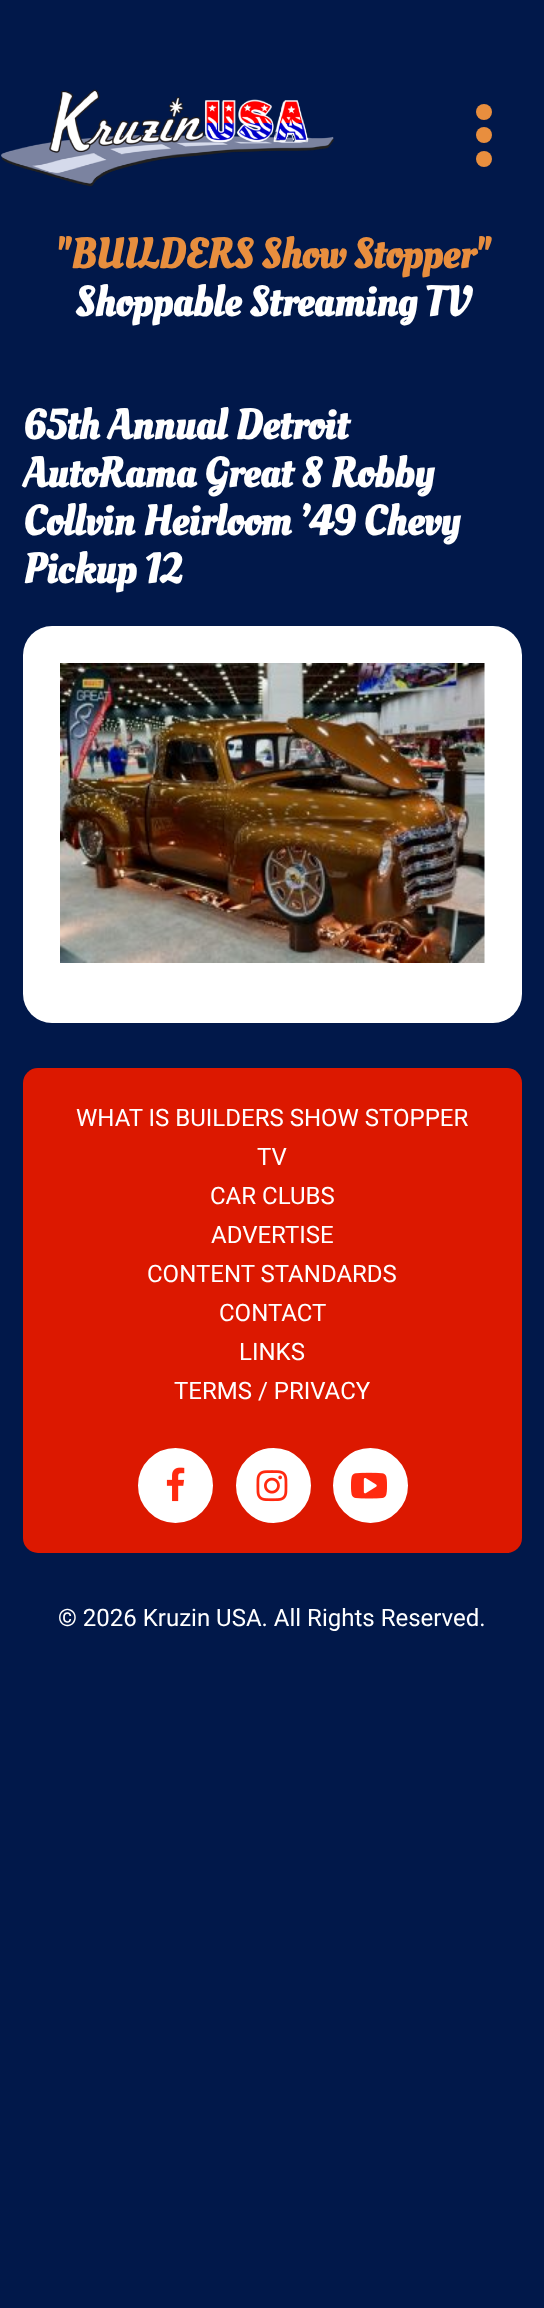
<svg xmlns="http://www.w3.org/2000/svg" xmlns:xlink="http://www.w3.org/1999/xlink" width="544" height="2308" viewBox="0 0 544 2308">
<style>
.cls-1{font:bold 42px Oleo Script;fill:#e88e3e}
.cls-2{font:bold 42px Oleo Script;fill:#ffffff}
.cls-3{font:24px Roboto;fill:#ffffff}
</style>
<rect width="100%" height="100%" fill="#01184a"/>
<image xlink:href="image0.png" x="1" y="89" width="333" height="98"/>
<circle fill="#e88e3e" cx="484" cy="112" r="8"/>
<circle fill="#e88e3e" cx="484" cy="135" r="8"/>
<circle fill="#e88e3e" cx="484" cy="159" r="8"/>
<rect fill="#ffffff" x="23" y="626" width="499" height="397" rx="29"/>
<image xlink:href="image1.png" x="60" y="663" width="425" height="300"/>
<rect fill="#dc1800" x="23" y="1068" width="499" height="485" rx="15"/>
<circle fill="#ffffff" stroke="#ffffff" stroke-width="2" cx="175.5" cy="1485.5" r="36.5"/>
<image xlink:href="image2.png" x="166" y="1467" width="19" height="35"/>
<circle fill="#ffffff" stroke="#ffffff" stroke-width="2" cx="273.5" cy="1485.5" r="36.5"/>
<image xlink:href="image3.png" x="256" y="1470" width="32" height="32"/>
<circle fill="#ffffff" stroke="#ffffff" stroke-width="2" cx="370.5" cy="1485.5" r="36.5"/>
<image xlink:href="image4.png" x="351" y="1472" width="36" height="27"/>
<text class="cls-1" x="55" y="268">"BUILDERS Show Stopper"</text>
<text class="cls-2" x="75" y="316">Shoppable Streaming TV</text>
<text class="cls-2"><tspan x="23" y="439">65th Annual Detroit</tspan><tspan x="23" y="487">AutoRama Great 8 Robby</tspan><tspan x="23" y="535">Collvin Heirloom ’49 Chevy</tspan><tspan x="23" y="583">Pickup 12</tspan></text>
<text class="cls-3" x="76" y="1126">WHAT IS BUILDERS SHOW STOPPER</text>
<text class="cls-3" x="257" y="1165">TV</text>
<text class="cls-3" x="210" y="1204">CAR CLUBS</text>
<text class="cls-3" x="211" y="1243">ADVERTISE</text>
<text class="cls-3" x="147" y="1282">CONTENT STANDARDS</text>
<text class="cls-3" x="219" y="1321">CONTACT</text>
<text class="cls-3" x="239" y="1360">LINKS</text>
<text class="cls-3" x="174" y="1399">TERMS / PRIVACY</text>
<text class="cls-3" x="58" y="1626">© 2026 Kruzin USA. All Rights Reserved.</text>
</svg>
